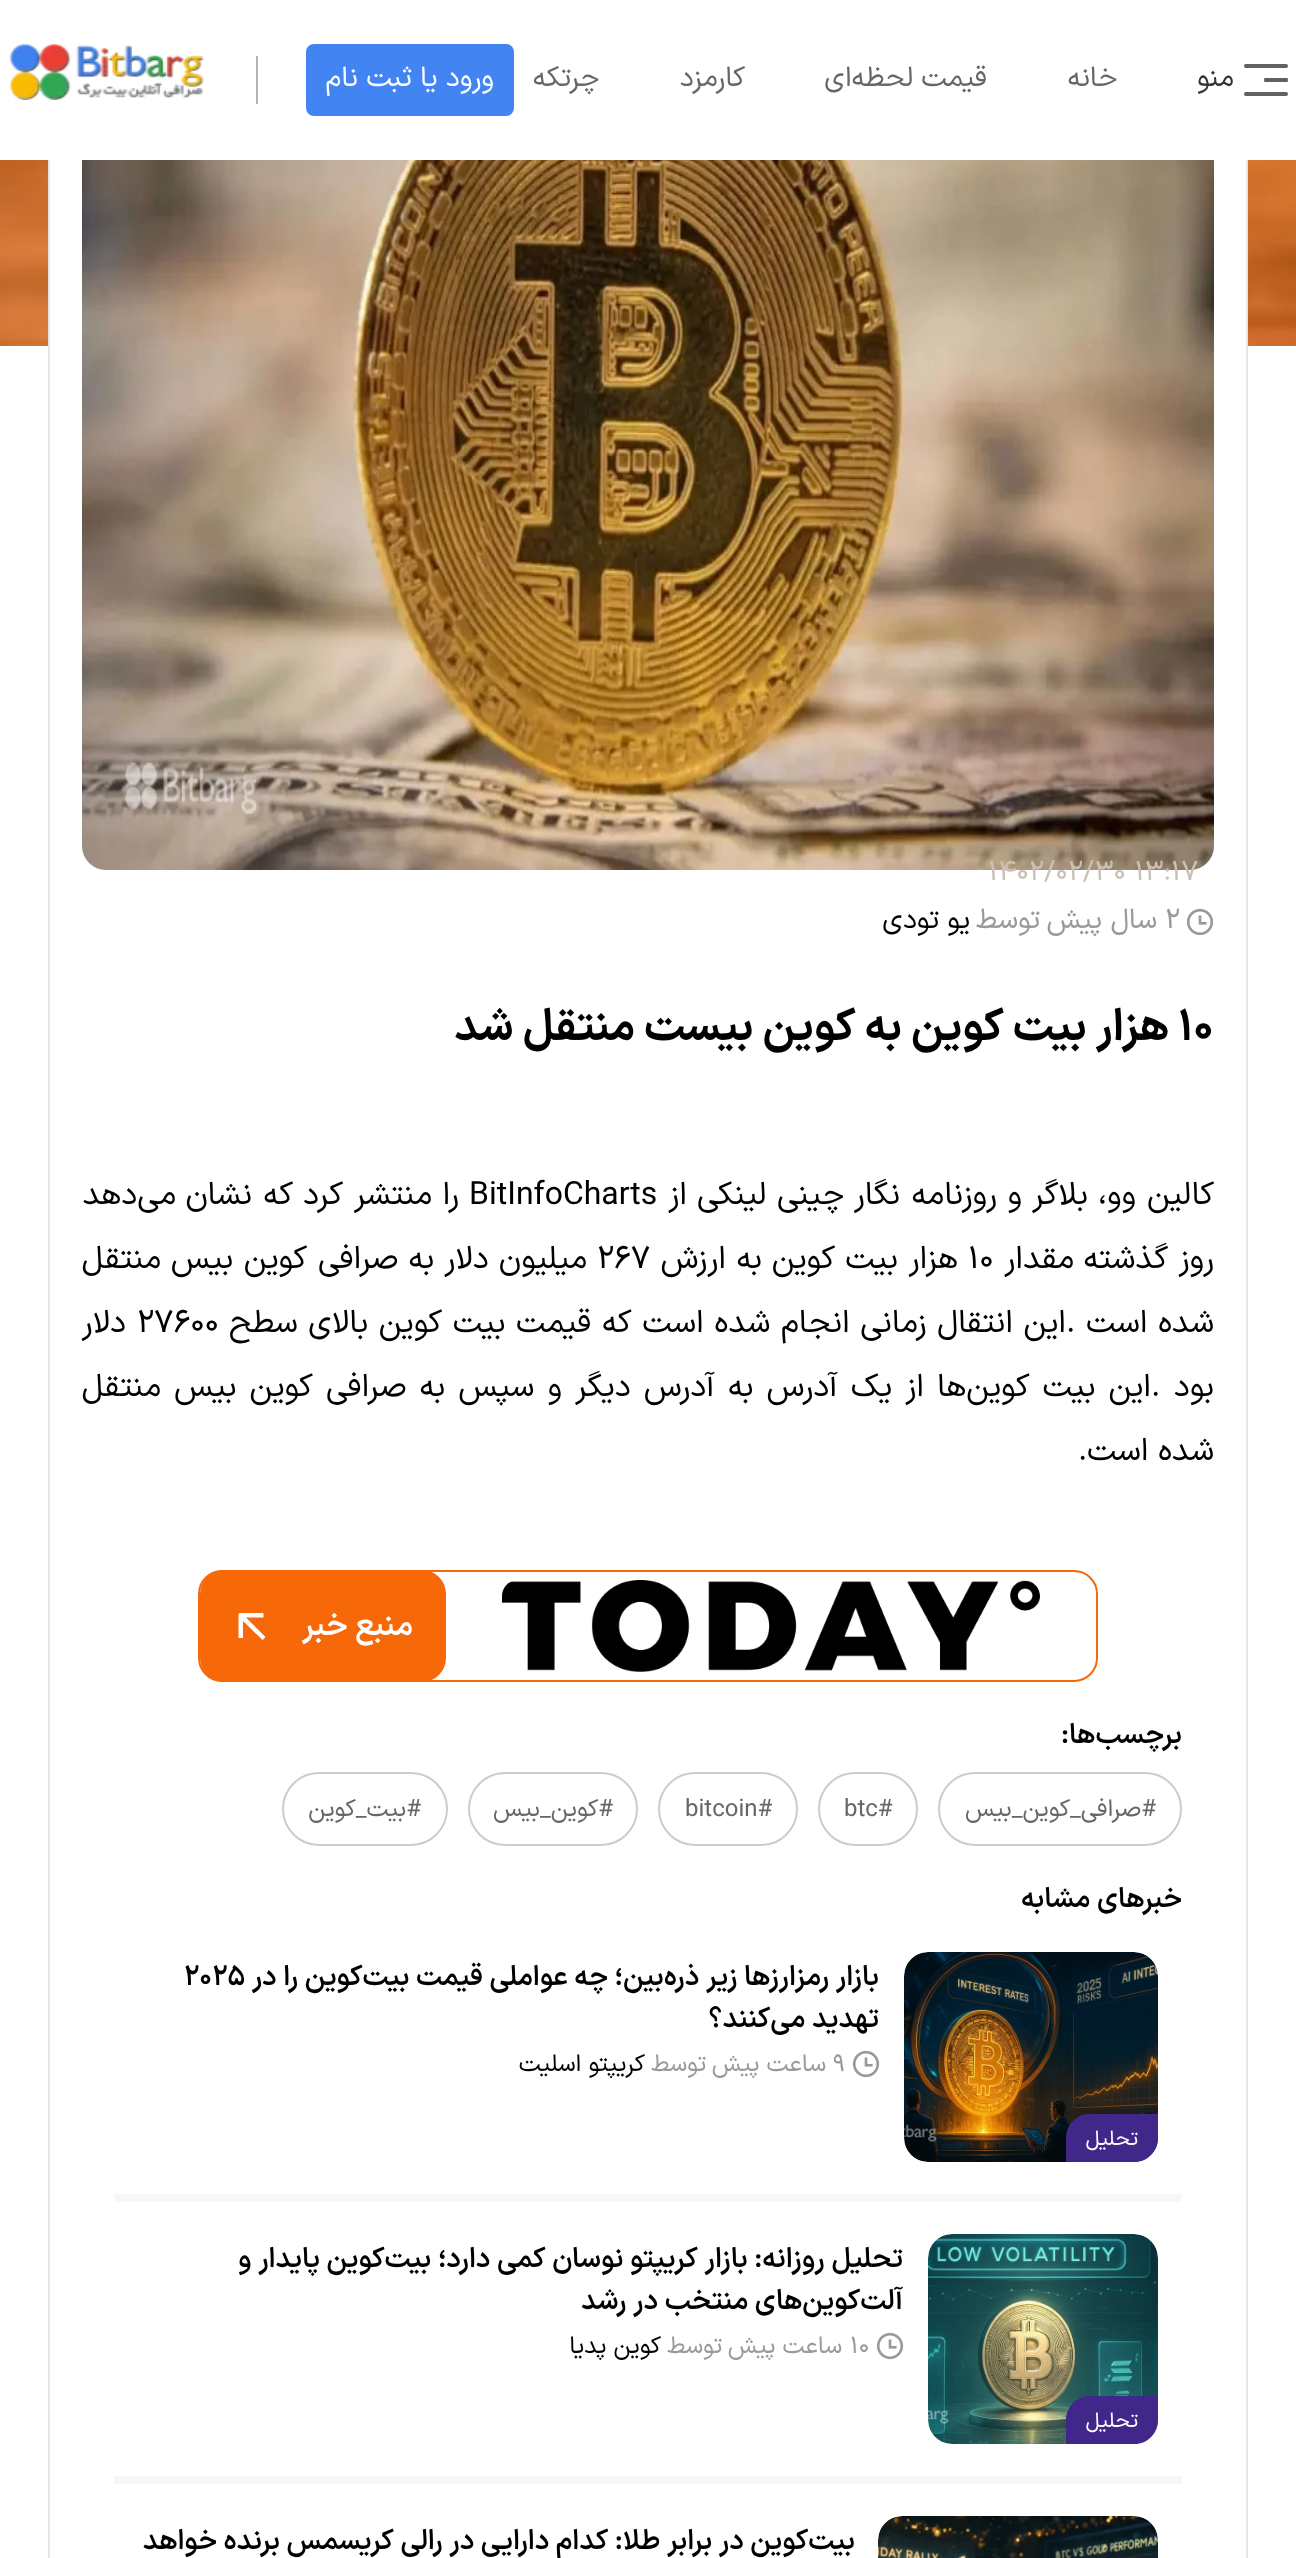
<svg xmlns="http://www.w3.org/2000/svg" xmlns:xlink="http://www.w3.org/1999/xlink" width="1296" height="2558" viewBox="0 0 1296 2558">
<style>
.cls-1{font:28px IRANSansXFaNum;direction:rtl;fill:#333333}
.cls-2{font:28px IRANSansXFaNum;direction:rtl;fill:#666666}
.cls-3{font:28px IRANSansXFaNum;direction:rtl;fill:#ffffff}
.cls-4{font:28px IRANSansXFaNum;fill:#cac0b4}
.cls-5{font:28px IRANSansXFaNum;fill:#999999}
.cls-6{font:28px IRANSansXFaNum;direction:rtl;fill:#999999}
.cls-7{font:28px IRANSansXFaNum;direction:rtl;fill:#000000}
.cls-8{font:bold 44px IRANSansXFaNum;fill:#000000}
.cls-9{font:bold 44px IRANSansXFaNum;direction:rtl;fill:#000000}
.cls-10{font:32px IRANSansXFaNum;direction:rtl;fill:#000000}
.cls-11{font:32px IRANSansXFaNum;fill:#000000}
.cls-12{font:600 32px IRANSansXFaNum;direction:rtl;fill:#ffffff}
.cls-13{font:600 28px IRANSansXFaNum;direction:rtl;fill:#000000}
.cls-14{font:24px IRANSansXFaNum;direction:rtl;fill:#666666}
.cls-15{font:24px IRANSansXFaNum;fill:#666666}
.cls-16{font:600 28px IRANSansXFaNum;fill:#000000}
.cls-17{font:24px IRANSansXFaNum;fill:#999999}
.cls-18{font:24px IRANSansXFaNum;direction:rtl;fill:#999999}
.cls-19{font:24px IRANSansXFaNum;direction:rtl;fill:#000000}
.cls-20{font:21px IRANSansXFaNum;direction:rtl;fill:#ffffff}
</style>
<rect width="100%" height="100%" fill="#ffffff"/>
<image xlink:href="image2.png" x="0" y="160" width="1296" height="186"/>
<rect fill="#ffffff" x="50" y="160" width="1196" height="186"/>
<rect fill="none" stroke="#e6e6e6" stroke-width="2" x="49" y="-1" width="1198" height="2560"/>
<rect fill="#ffffff" x="48" y="0" width="1200" height="160"/>
<image xlink:href="image0.png" x="1244" y="64" width="44" height="32"/>
<rect fill="#4285f2" x="306" y="44" width="208" height="72" rx="8"/>
<rect fill="#b3b3b3" x="256" y="56" width="2" height="48"/>
<image xlink:href="image1.png" x="9" y="44" width="195" height="56"/>
<image xlink:href="image3.png" x="82" y="160" width="1132" height="710"/>
<image xlink:href="image4.png" x="1186" y="908" width="28" height="28"/>
<rect fill="none" stroke="#f76908" stroke-width="2" x="199" y="1571" width="898" height="110" rx="23"/>
<image xlink:href="image5.png" x="502" y="1580" width="538" height="92"/>
<rect fill="#f76908" x="200" y="1570" width="246" height="112" rx="24"/>
<path fill="#ffffff" d="M246 1617.5L265.5 1637L262.5 1640L243 1621V1638H238.5V1614L239.5 1613H263L263.5 1613.5V1617.5Z"/>
<rect fill="none" stroke="#cccccc" stroke-width="2" x="939" y="1773" width="242" height="72" rx="36"/>
<rect fill="none" stroke="#cccccc" stroke-width="2" x="819" y="1773" width="98" height="72" rx="36"/>
<rect fill="none" stroke="#cccccc" stroke-width="2" x="659" y="1773" width="138" height="72" rx="36"/>
<rect fill="none" stroke="#cccccc" stroke-width="2" x="469" y="1773" width="168" height="72" rx="36"/>
<rect fill="none" stroke="#cccccc" stroke-width="2" x="283" y="1773" width="164" height="72" rx="36"/>
<image xlink:href="image4.png" x="852" y="2050" width="28" height="28"/>
<image xlink:href="image6.png" x="904" y="1952" width="254" height="210"/>
<path fill="#42278b" d="M1090 2114H1158V2138C1158 2151.5 1147.5 2162 1134 2162H1066V2138C1066 2124.5 1076.5 2114 1090 2114Z"/>
<rect fill="#f7f7f7" x="114" y="2194" width="1068" height="8"/>
<image xlink:href="image4.png" x="876" y="2332" width="28" height="28"/>
<image xlink:href="image7.png" x="928" y="2234" width="230" height="210"/>
<path fill="#42278b" d="M1090 2396H1158V2420C1158 2433.5 1147.5 2444 1134 2444H1066V2420C1066 2406.5 1076.5 2396 1090 2396Z"/>
<rect fill="#f7f7f7" x="114" y="2476" width="1068" height="8"/>
<image xlink:href="image8.png" x="878" y="2516" width="280" height="42"/>
<text class="cls-1" x="1234" y="86">منو</text>
<text class="cls-2" x="1117" y="86">خانه</text>
<text class="cls-2" x="987" y="86">قیمت لحظه‌ای</text>
<text class="cls-2" x="745" y="86">کارمزد</text>
<text class="cls-2" x="599" y="86">چرتکه</text>
<text class="cls-3" x="494" y="86">ورود یا ثبت نام</text>
<text class="cls-4" x="988" y="880">1402/02/30 13:17</text>
<text class="cls-5" x="1165" y="928">2</text>
<text class="cls-6" x="1157" y="928">سال پیش</text>
<text class="cls-6" x="1040" y="928">توسط</text>
<text class="cls-7" x="970" y="928">یو تودی</text>
<text class="cls-8" x="1178" y="1040">۱۰</text>
<text class="cls-9" x="1169" y="1040">هزار بیت کوین به کوین بیست منتقل شد</text>
<text class="cls-10" x="1214" y="1204">کالین</text>
<text class="cls-10" x="1136" y="1204">وو،</text>
<text class="cls-10" x="1088" y="1204">بلاگر</text>
<text class="cls-10" x="1022" y="1204">و</text>
<text class="cls-10" x="997" y="1204">روزنامه</text>
<text class="cls-10" x="900" y="1204">نگار</text>
<text class="cls-10" x="844" y="1204">چینی</text>
<text class="cls-10" x="766" y="1204">لینکی</text>
<text class="cls-10" x="687" y="1204">از</text>
<text class="cls-11" x="469" y="1204">BitInfoCharts</text>
<text class="cls-10" x="459" y="1204">را</text>
<text class="cls-10" x="432" y="1204">منتشر</text>
<text class="cls-10" x="343" y="1204">کرد</text>
<text class="cls-10" x="293" y="1204">که</text>
<text class="cls-10" x="252" y="1204">نشان</text>
<text class="cls-10" x="176" y="1204">می‌دهد</text>
<text class="cls-10" x="1214" y="1268">روز</text>
<text class="cls-10" x="1168" y="1268">گذشته</text>
<text class="cls-10" x="1074" y="1268">مقدار</text>
<text class="cls-11" x="968" y="1268">۱۰</text>
<text class="cls-10" x="958" y="1268">هزار</text>
<text class="cls-10" x="898" y="1268">بیت</text>
<text class="cls-10" x="835" y="1268">کوین</text>
<text class="cls-10" x="762" y="1268">به</text>
<text class="cls-10" x="726" y="1268">ارزش</text>
<text class="cls-11" x="597" y="1268">۲۶۷</text>
<text class="cls-10" x="587" y="1268" word-spacing="0.5">میلیون دلار به صرافی</text>
<text class="cls-10" x="307" y="1268" word-spacing="1">کوین بیس</text>
<text class="cls-10" x="161" y="1268">منتقل</text>
<text class="cls-10" x="1214" y="1332" word-spacing="1">شده است</text>
<text class="cls-11" x="1066" y="1332">.</text>
<text class="cls-10" x="1066" y="1332" word-spacing="1">این انتقال زمانی انجام شده است که قیمت بیت کوین بالای سطح</text>
<text class="cls-11" x="137" y="1332">۲۷۶۰۰</text>
<text class="cls-10" x="126" y="1332">دلار</text>
<text class="cls-10" x="1214" y="1396">بود</text>
<text class="cls-11" x="1151" y="1396">.</text>
<text class="cls-10" x="1151" y="1396" word-spacing="3.5">این بیت کوین‌ها از یک آدرس به آدرس دیگر و سپس به صرافی کوین بیس منتقل</text>
<text class="cls-10" x="1214" y="1460">شده است</text>
<text class="cls-11" x="1078" y="1460">.</text>
<text class="cls-12" x="413" y="1635">منبع خبر</text>
<text class="cls-13" x="1182" y="1743">برچسب‌ها:</text>
<text class="cls-14" x="1156" y="1816">#صرافی_کوین_بیس</text>
<text class="cls-15" x="844" y="1816">btc#</text>
<text class="cls-15" x="685" y="1816">bitcoin#</text>
<text class="cls-14" x="613" y="1816">#کوین_بیس</text>
<text class="cls-14" x="421" y="1816">#بیت_کوین</text>
<text class="cls-13" x="1182" y="1907">خبر‌های مشابه</text>
<text class="cls-13" x="879" y="1985">بازار رمزارزها زیر ذره‌بین؛ چه عواملی قیمت بیت‌کوین را در</text>
<text class="cls-16" x="184" y="1985">۲۰۲۵</text>
<text class="cls-13" x="879" y="2027">تهدید می‌کنند؟</text>
<text class="cls-17" x="833" y="2071">9</text>
<text class="cls-18" x="826" y="2071">ساعت پیش</text>
<text class="cls-18" x="706" y="2071">توسط</text>
<text class="cls-19" x="645" y="2071">کریپتو اسلیت</text>
<text class="cls-20" x="1138" y="2145">تحلیل</text>
<text class="cls-13"><tspan x="903" y="2267">تحلیل روزانه: بازار کریپتو نوسان کمی دارد؛ بیت‌کوین پایدار و</tspan><tspan x="903" y="2309">آلت‌کوین‌های منتخب در رشد</tspan></text>
<text class="cls-17" x="850" y="2353">10</text>
<text class="cls-18" x="842" y="2353">ساعت پیش</text>
<text class="cls-18" x="722" y="2353">توسط</text>
<text class="cls-19" x="661" y="2353">کوین پدیا</text>
<text class="cls-20" x="1138" y="2427">تحلیل</text>
<text class="cls-13" x="855" y="2549">بیت‌کوین در برابر طلا: کدام دارایی در رالی کریسمس برنده خواهد</text>
</svg>
